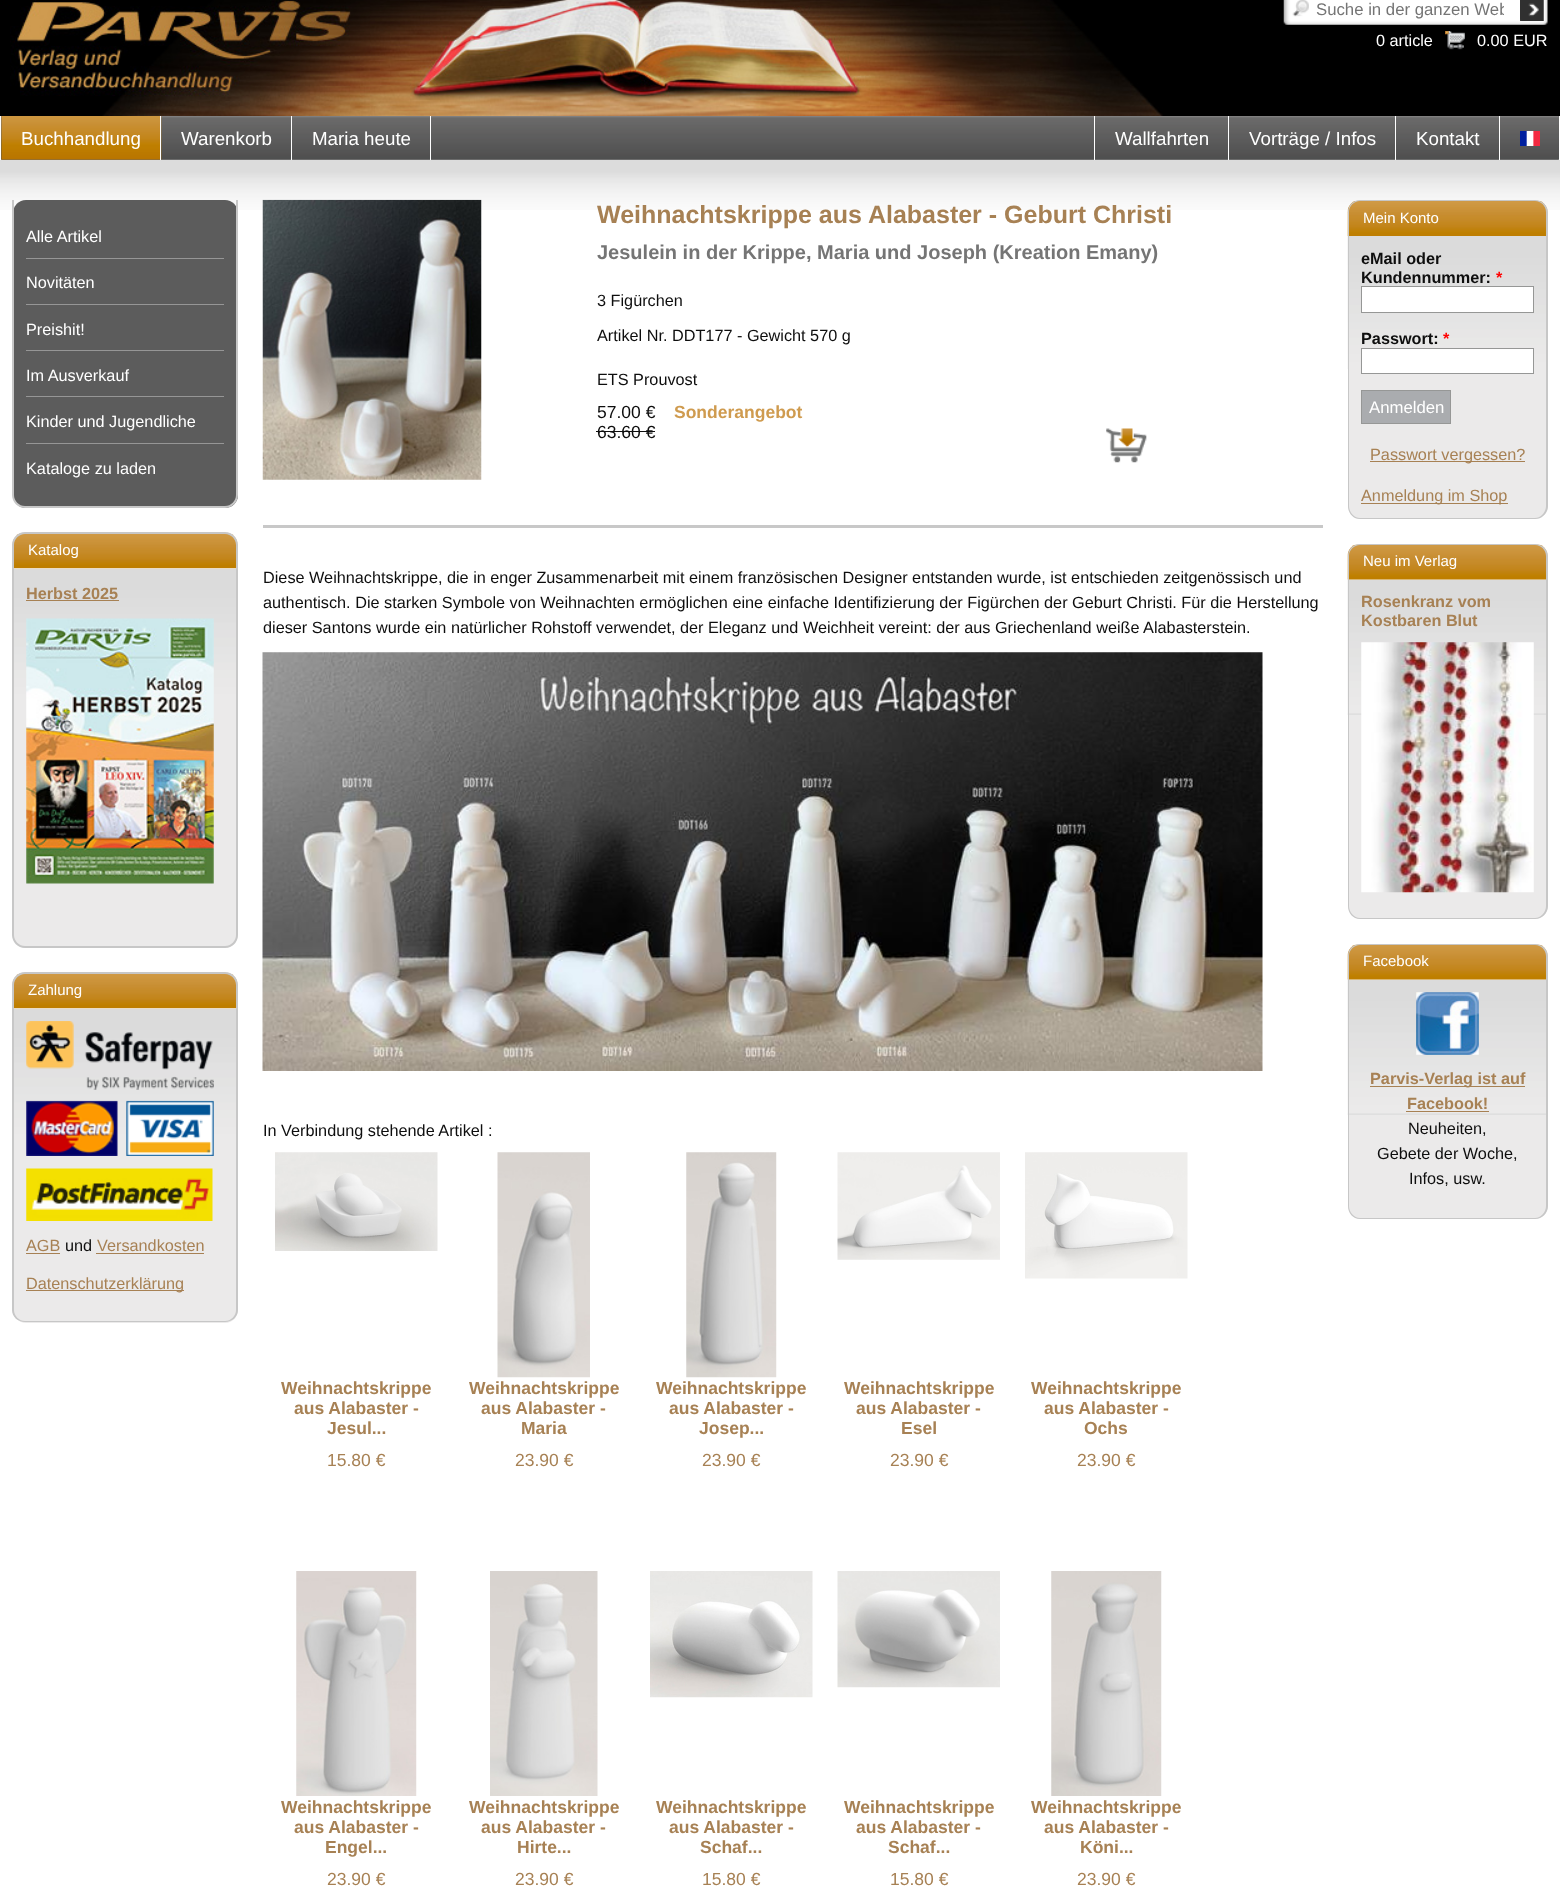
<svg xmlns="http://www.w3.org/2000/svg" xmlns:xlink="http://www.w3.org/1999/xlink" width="1560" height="1892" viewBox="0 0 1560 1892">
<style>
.cls-1{font:16.75px Liberation Sans;fill:#757575}
.cls-2{font:16.25px Liberation Sans;fill:#ffffff}
.cls-3{font:18.75px Liberation Sans;fill:#ffffff}
.cls-4{font:15px Liberation Sans;fill:#ffffff}
.cls-5{font:bold 16.25px Liberation Sans;fill:#a78154}
.cls-6{font:16.25px Liberation Sans;fill:#a78154}
.cls-7{font:16.25px Liberation Sans;fill:#0e0e0e}
.cls-8{font:bold 25px Liberation Sans;fill:#a78154}
.cls-9{font:bold 20px Liberation Sans;fill:#757575}
.cls-10{font:17.5px Liberation Sans;fill:#0e0e0e}
.cls-11{font:bold 17.5px Liberation Sans;fill:#cf9b4f}
.cls-12{font:bold 17.5px Liberation Sans;fill:#a78154}
.cls-13{font:17.5px Liberation Sans;fill:#a78154}
.cls-14{font:bold 16.25px Liberation Sans;fill:#0e0e0e}
.cls-15{font:bold 16.25px Liberation Sans;fill:#ff0000}
.cls-16{font:16.75px Liberation Sans;fill:#ffffff}
</style>
<defs>
<clipPath id="clip1"><rect x="1316" y="0" width="188" height="19"/></clipPath>
</defs>
<rect width="100%" height="100%" fill="#ffffff"/>
<rect fill="#000000" x="0" y="0" width="1560" height="116"/>
<image xlink:href="image0.png" x="10" y="0" width="1153" height="116"/>
<image xlink:href="image1.png" x="1283" y="0" width="265" height="25"/>
<image xlink:href="image2.png" x="1520" y="0" width="24" height="21"/>
<image xlink:href="image3.png" x="1445" y="31" width="20" height="19"/>
<image xlink:href="image8.png" x="0" y="159" width="1560" height="51"/>
<image xlink:href="image4.png" x="1" y="116" width="1558" height="44"/>
<rect fill="#ffffff" x="1559" y="159" width="1" height="1"/>
<rect fill="#ffffff" x="0" y="159" width="1" height="1"/>
<image xlink:href="image5.png" x="1" y="116" width="1558" height="44"/>
<image xlink:href="image6.png" x="1" y="116" width="161" height="44"/>
<rect fill="#ffffff" x="160" y="116" width="1" height="44"/>
<rect fill="#ffffff" x="291" y="116" width="1" height="44"/>
<rect fill="#ffffff" x="430" y="116" width="1" height="44"/>
<rect fill="#ffffff" x="1094" y="116" width="1" height="44"/>
<rect fill="#ffffff" x="1228" y="116" width="1" height="44"/>
<rect fill="#ffffff" x="1395" y="116" width="1" height="44"/>
<rect fill="#ffffff" x="1499" y="116" width="1" height="44"/>
<image xlink:href="image7.png" x="1520" y="131" width="20" height="15"/>
<rect fill="#5c5c5c" x="13" y="200" width="225" height="308" rx="13"/>
<path fill="#c7c7c7" fill-rule="evenodd" d="M12 200H238V495C238 502 232 508 225 508H25C18 508 12 502 12 495ZM14 200H236V495C236 501 231 506 225 506H25C19 506 14 501 14 495Z"/>
<rect fill="#969696" x="26" y="258" width="198" height="1"/>
<rect fill="#969696" x="26" y="304" width="198" height="1"/>
<rect fill="#969696" x="26" y="350" width="198" height="1"/>
<rect fill="#969696" x="26" y="396" width="198" height="1"/>
<rect fill="#969696" x="26" y="443" width="198" height="1"/>
<image xlink:href="image9.png" x="12" y="533" width="226" height="36"/>
<path fill="#c7c7c7" fill-rule="evenodd" d="M25 532H225C232 532 238 538 238 545V569H12V545C12 538 18 532 25 532ZM25 534H225C231 534 236 539 236 545V569H14V545C14 539 19 534 25 534Z"/>
<path fill="#ebeaea" d="M13 569H238V935C238 942 232 948 225 948H26C19 948 13 942 13 935Z"/>
<image xlink:href="image10.png" x="12" y="568" width="226" height="134"/>
<path fill="#c7c7c7" fill-rule="evenodd" d="M12 569H238V935C238 942 232 948 225 948H25C18 948 12 942 12 935ZM14 569H236V935C236 941 231 946 225 946H25C19 946 14 941 14 935Z"/>
<rect fill="#a78154" x="26" y="600" width="93" height="1"/>
<image xlink:href="image11.png" x="26" y="618" width="188" height="266"/>
<image xlink:href="image12.png" x="12" y="973" width="226" height="36"/>
<path fill="#c7c7c7" fill-rule="evenodd" d="M25 972H225C232 972 238 978 238 985V1009H12V985C12 978 18 972 25 972ZM25 974H225C231 974 236 979 236 985V1009H14V985C14 979 19 974 25 974Z"/>
<path fill="#ebeaea" d="M13 1009H238V1310C238 1317 232 1323 225 1323H26C19 1323 13 1317 13 1310Z"/>
<image xlink:href="image10.png" x="12" y="1008" width="226" height="134"/>
<path fill="#c7c7c7" fill-rule="evenodd" d="M12 1009H238V1310C238 1317 232 1322 225 1322H25C18 1322 12 1317 12 1310ZM14 1009H236V1310C236 1316 231 1321 225 1321H25C19 1321 14 1316 14 1310Z"/>
<image xlink:href="image13.png" x="26" y="1021" width="188" height="135"/>
<image xlink:href="image14.png" x="26" y="1168" width="187" height="53"/>
<rect fill="#a78154" x="26" y="1253" width="34" height="1"/>
<rect fill="#a78154" x="96" y="1253" width="108" height="1"/>
<rect fill="#a78154" x="26" y="1290" width="158" height="1"/>
<rect fill="#c8c8c8" x="263" y="525" width="1060" height="3"/>
<image xlink:href="image15.png" x="262" y="199" width="220" height="281"/>
<rect fill="#0e0e0e" x="596" y="431" width="59" height="1"/>
<image xlink:href="image16.png" x="1106" y="428" width="41" height="35"/>
<image xlink:href="image17.png" x="262" y="652" width="1001" height="419"/>
<image xlink:href="image18.png" x="275" y="1152" width="163" height="99"/>
<image xlink:href="image19.png" x="497" y="1152" width="93" height="226"/>
<image xlink:href="image20.png" x="686" y="1152" width="91" height="226"/>
<image xlink:href="image21.png" x="837" y="1152" width="163" height="108"/>
<image xlink:href="image22.png" x="1025" y="1152" width="163" height="127"/>
<image xlink:href="image23.png" x="296" y="1571" width="121" height="225"/>
<image xlink:href="image24.png" x="490" y="1571" width="108" height="225"/>
<image xlink:href="image25.png" x="650" y="1571" width="163" height="127"/>
<image xlink:href="image26.png" x="837" y="1571" width="163" height="117"/>
<image xlink:href="image27.png" x="1051" y="1571" width="111" height="225"/>
<image xlink:href="image28.png" x="1347" y="201" width="201" height="35"/>
<path fill="#c7c7c7" fill-rule="evenodd" d="M1360 200H1535C1542 200 1548 206 1548 212V236H1348V212C1348 206 1353 200 1360 200ZM1360 201H1535C1541 201 1546 206 1546 212V236H1349V212C1349 206 1354 201 1360 201Z"/>
<path fill="#ebeaea" d="M1348 236H1548V506C1548 513 1542 519 1535 519H1361C1354 519 1348 513 1348 506Z"/>
<image xlink:href="image29.png" x="1347" y="236" width="199" height="133"/>
<path fill="#c7c7c7" fill-rule="evenodd" d="M1348 236H1548V506C1548 513 1542 519 1535 519H1360C1353 519 1348 513 1348 506ZM1349 236H1546V506C1546 512 1541 518 1535 518H1360C1354 518 1349 512 1349 506Z"/>
<rect fill="#ffffff" stroke="#969796" x="1361.5" y="286.5" width="172" height="26"/>
<rect fill="#ffffff" stroke="#969796" x="1361.5" y="348.5" width="172" height="25"/>
<rect fill="#aaacaf" stroke="#969796" x="1361.5" y="390.5" width="89" height="33"/>
<rect fill="#a78154" x="1370" y="461" width="155" height="1"/>
<rect fill="#a78154" x="1361" y="503" width="147" height="1"/>
<image xlink:href="image30.png" x="1347" y="544" width="201" height="36"/>
<path fill="#c7c7c7" fill-rule="evenodd" d="M1360 544H1535C1542 544 1548 549 1548 556V580H1348V556C1348 549 1353 544 1360 544ZM1360 545H1535C1541 545 1546 550 1546 556V580H1349V556C1349 550 1354 545 1360 545Z"/>
<path fill="#ebeaea" d="M1348 580H1548V906C1548 913 1542 919 1535 919H1361C1354 919 1348 913 1348 906Z"/>
<image xlink:href="image31.png" x="1347" y="579" width="200" height="136"/>
<path fill="#c7c7c7" fill-rule="evenodd" d="M1348 580H1548V906C1548 913 1542 919 1535 919H1360C1353 919 1348 913 1348 906ZM1349 580H1546V906C1546 912 1541 918 1535 918H1360C1354 918 1349 912 1349 906Z"/>
<image xlink:href="image32.png" x="1361" y="642" width="173" height="251"/>
<image xlink:href="image30.png" x="1347" y="944" width="201" height="36"/>
<path fill="#c7c7c7" fill-rule="evenodd" d="M1360 944H1535C1542 944 1548 949 1548 956V980H1348V956C1348 949 1353 944 1360 944ZM1360 945H1535C1541 945 1546 950 1546 956V980H1349V956C1349 950 1354 945 1360 945Z"/>
<path fill="#ebeaea" d="M1348 980H1548V1206C1548 1213 1542 1219 1535 1219H1361C1354 1219 1348 1213 1348 1206Z"/>
<image xlink:href="image33.png" x="1347" y="979" width="200" height="136"/>
<path fill="#c7c7c7" fill-rule="evenodd" d="M1348 980H1548V1206C1548 1213 1542 1219 1535 1219H1360C1353 1219 1348 1213 1348 1206ZM1349 980H1546V1206C1546 1212 1541 1218 1535 1218H1360C1354 1218 1349 1212 1349 1206Z"/>
<image xlink:href="image34.png" x="1416" y="992" width="63" height="63"/>
<rect fill="#a78154" x="1370" y="1086" width="155" height="1"/>
<rect fill="#a78154" x="1406" y="1111" width="83" height="1"/>
<g clip-path="url(#clip1)">
<text class="cls-1" x="1316" y="15">Suche in der ganzen Web</text>
</g>
<text class="cls-2" x="1376" y="46">0 article</text>
<text class="cls-2" x="1477" y="46">0.00 EUR</text>
<text class="cls-3" x="21" y="145">Buchhandlung</text>
<text class="cls-3" x="181" y="145">Warenkorb</text>
<text class="cls-3" x="312" y="145">Maria heute</text>
<text class="cls-3" x="1115" y="145">Wallfahrten</text>
<text class="cls-3" x="1249" y="145">Vorträge / Infos</text>
<text class="cls-3" x="1416" y="145">Kontakt</text>
<text class="cls-2" x="26" y="242">Alle Artikel</text>
<text class="cls-2" x="26" y="288">Novitäten</text>
<text class="cls-2" x="26" y="335">Preishit!</text>
<text class="cls-2" x="26" y="381">Im Ausverkauf</text>
<text class="cls-2" x="26" y="427">Kinder und Jugendliche</text>
<text class="cls-2" x="26" y="474">Kataloge zu laden</text>
<text class="cls-4" x="28" y="555">Katalog</text>
<text class="cls-5" x="26" y="599">Herbst 2025</text>
<text class="cls-4" x="28" y="995">Zahlung</text>
<text class="cls-6" x="26" y="1251">AGB</text>
<text class="cls-7" x="65" y="1251">und</text>
<text class="cls-6" x="97" y="1251">Versandkosten</text>
<text class="cls-6" x="26" y="1289">Datenschutzerklärung</text>
<text class="cls-8" x="597" y="223">Weihnachtskrippe aus Alabaster - Geburt Christi</text>
<text class="cls-9" x="597" y="259">Jesulein in der Krippe, Maria und Joseph (Kreation Emany)</text>
<text class="cls-7" x="597" y="306">3 Figürchen</text>
<text class="cls-7" x="597" y="341">Artikel Nr. DDT177 - Gewicht 570 g</text>
<text class="cls-7" x="597" y="385">ETS Prouvost</text>
<text class="cls-10" x="597" y="418">57.00 €</text>
<text class="cls-11" x="674" y="418">Sonderangebot</text>
<text class="cls-10" x="597" y="438">63.60 €</text>
<text class="cls-7"><tspan x="263" y="583">Diese Weihnachtskrippe, die in enger Zusammenarbeit mit einem französischen Designer entstanden wurde, ist entschieden zeitgenössisch und</tspan><tspan x="263" y="608">authentisch. Die starken Symbole von Weihnachten ermöglichen eine einfache Identifizierung der Figürchen der Geburt Christi. Für die Herstellung</tspan><tspan x="263" y="633">dieser Santons wurde ein natürlicher Rohstoff verwendet, der Eleganz und Weichheit vereint: der aus Griechenland weiße Alabasterstein.</tspan></text>
<text class="cls-7" x="263" y="1136">In Verbindung stehende Artikel :</text>
<text class="cls-12" x="281" y="1394">Weihnachtskrippe</text>
<text class="cls-12" x="294" y="1414">aus Alabaster -</text>
<text class="cls-12" x="327" y="1434">Jesul...</text>
<text class="cls-13" x="327" y="1466">15.80 €</text>
<text class="cls-12" x="469" y="1394">Weihnachtskrippe</text>
<text class="cls-12" x="481" y="1414">aus Alabaster -</text>
<text class="cls-12" x="521" y="1434">Maria</text>
<text class="cls-13" x="515" y="1466">23.90 €</text>
<text class="cls-12" x="656" y="1394">Weihnachtskrippe</text>
<text class="cls-12" x="669" y="1414">aus Alabaster -</text>
<text class="cls-12" x="699" y="1434">Josep...</text>
<text class="cls-13" x="702" y="1466">23.90 €</text>
<text class="cls-12" x="844" y="1394">Weihnachtskrippe</text>
<text class="cls-12" x="856" y="1414">aus Alabaster -</text>
<text class="cls-12" x="901" y="1434">Esel</text>
<text class="cls-13" x="890" y="1466">23.90 €</text>
<text class="cls-12" x="1031" y="1394">Weihnachtskrippe</text>
<text class="cls-12" x="1044" y="1414">aus Alabaster -</text>
<text class="cls-12" x="1084" y="1434">Ochs</text>
<text class="cls-13" x="1077" y="1466">23.90 €</text>
<text class="cls-12" x="281" y="1813">Weihnachtskrippe</text>
<text class="cls-12" x="294" y="1833">aus Alabaster -</text>
<text class="cls-12" x="325" y="1853">Engel...</text>
<text class="cls-13" x="327" y="1885">23.90 €</text>
<text class="cls-12" x="469" y="1813">Weihnachtskrippe</text>
<text class="cls-12" x="481" y="1833">aus Alabaster -</text>
<text class="cls-12" x="517" y="1853">Hirte...</text>
<text class="cls-13" x="515" y="1885">23.90 €</text>
<text class="cls-12" x="656" y="1813">Weihnachtskrippe</text>
<text class="cls-12" x="669" y="1833">aus Alabaster -</text>
<text class="cls-12" x="700" y="1853">Schaf...</text>
<text class="cls-13" x="702" y="1885">15.80 €</text>
<text class="cls-12" x="844" y="1813">Weihnachtskrippe</text>
<text class="cls-12" x="856" y="1833">aus Alabaster -</text>
<text class="cls-12" x="888" y="1853">Schaf...</text>
<text class="cls-13" x="890" y="1885">15.80 €</text>
<text class="cls-12" x="1031" y="1813">Weihnachtskrippe</text>
<text class="cls-12" x="1044" y="1833">aus Alabaster -</text>
<text class="cls-12" x="1080" y="1853">Köni...</text>
<text class="cls-13" x="1077" y="1885">23.90 €</text>
<text class="cls-4" x="1363" y="223">Mein Konto</text>
<text class="cls-14"><tspan x="1361" y="264">eMail oder</tspan><tspan x="1361" y="283">Kundennummer:</tspan></text>
<text class="cls-15" x="1496" y="283">*</text>
<text class="cls-14" x="1361" y="344">Passwort:</text>
<text class="cls-15" x="1443" y="344">*</text>
<text class="cls-16" x="1369" y="413">Anmelden</text>
<text class="cls-6" x="1370" y="460">Passwort vergessen?</text>
<text class="cls-6" x="1361" y="501">Anmeldung im Shop</text>
<text class="cls-4" x="1363" y="566">Neu im Verlag</text>
<text class="cls-5"><tspan x="1361" y="607">Rosenkranz vom</tspan><tspan x="1361" y="626">Kostbaren Blut</tspan></text>
<text class="cls-4" x="1363" y="966">Facebook</text>
<text class="cls-5" x="1370" y="1084">Parvis-Verlag ist auf</text>
<text class="cls-5" x="1407" y="1109">Facebook!</text>
<text class="cls-7" x="1408" y="1134">Neuheiten,</text>
<text class="cls-7" x="1377" y="1159">Gebete der Woche,</text>
<text class="cls-7" x="1409" y="1184">Infos, usw.</text>
</svg>
